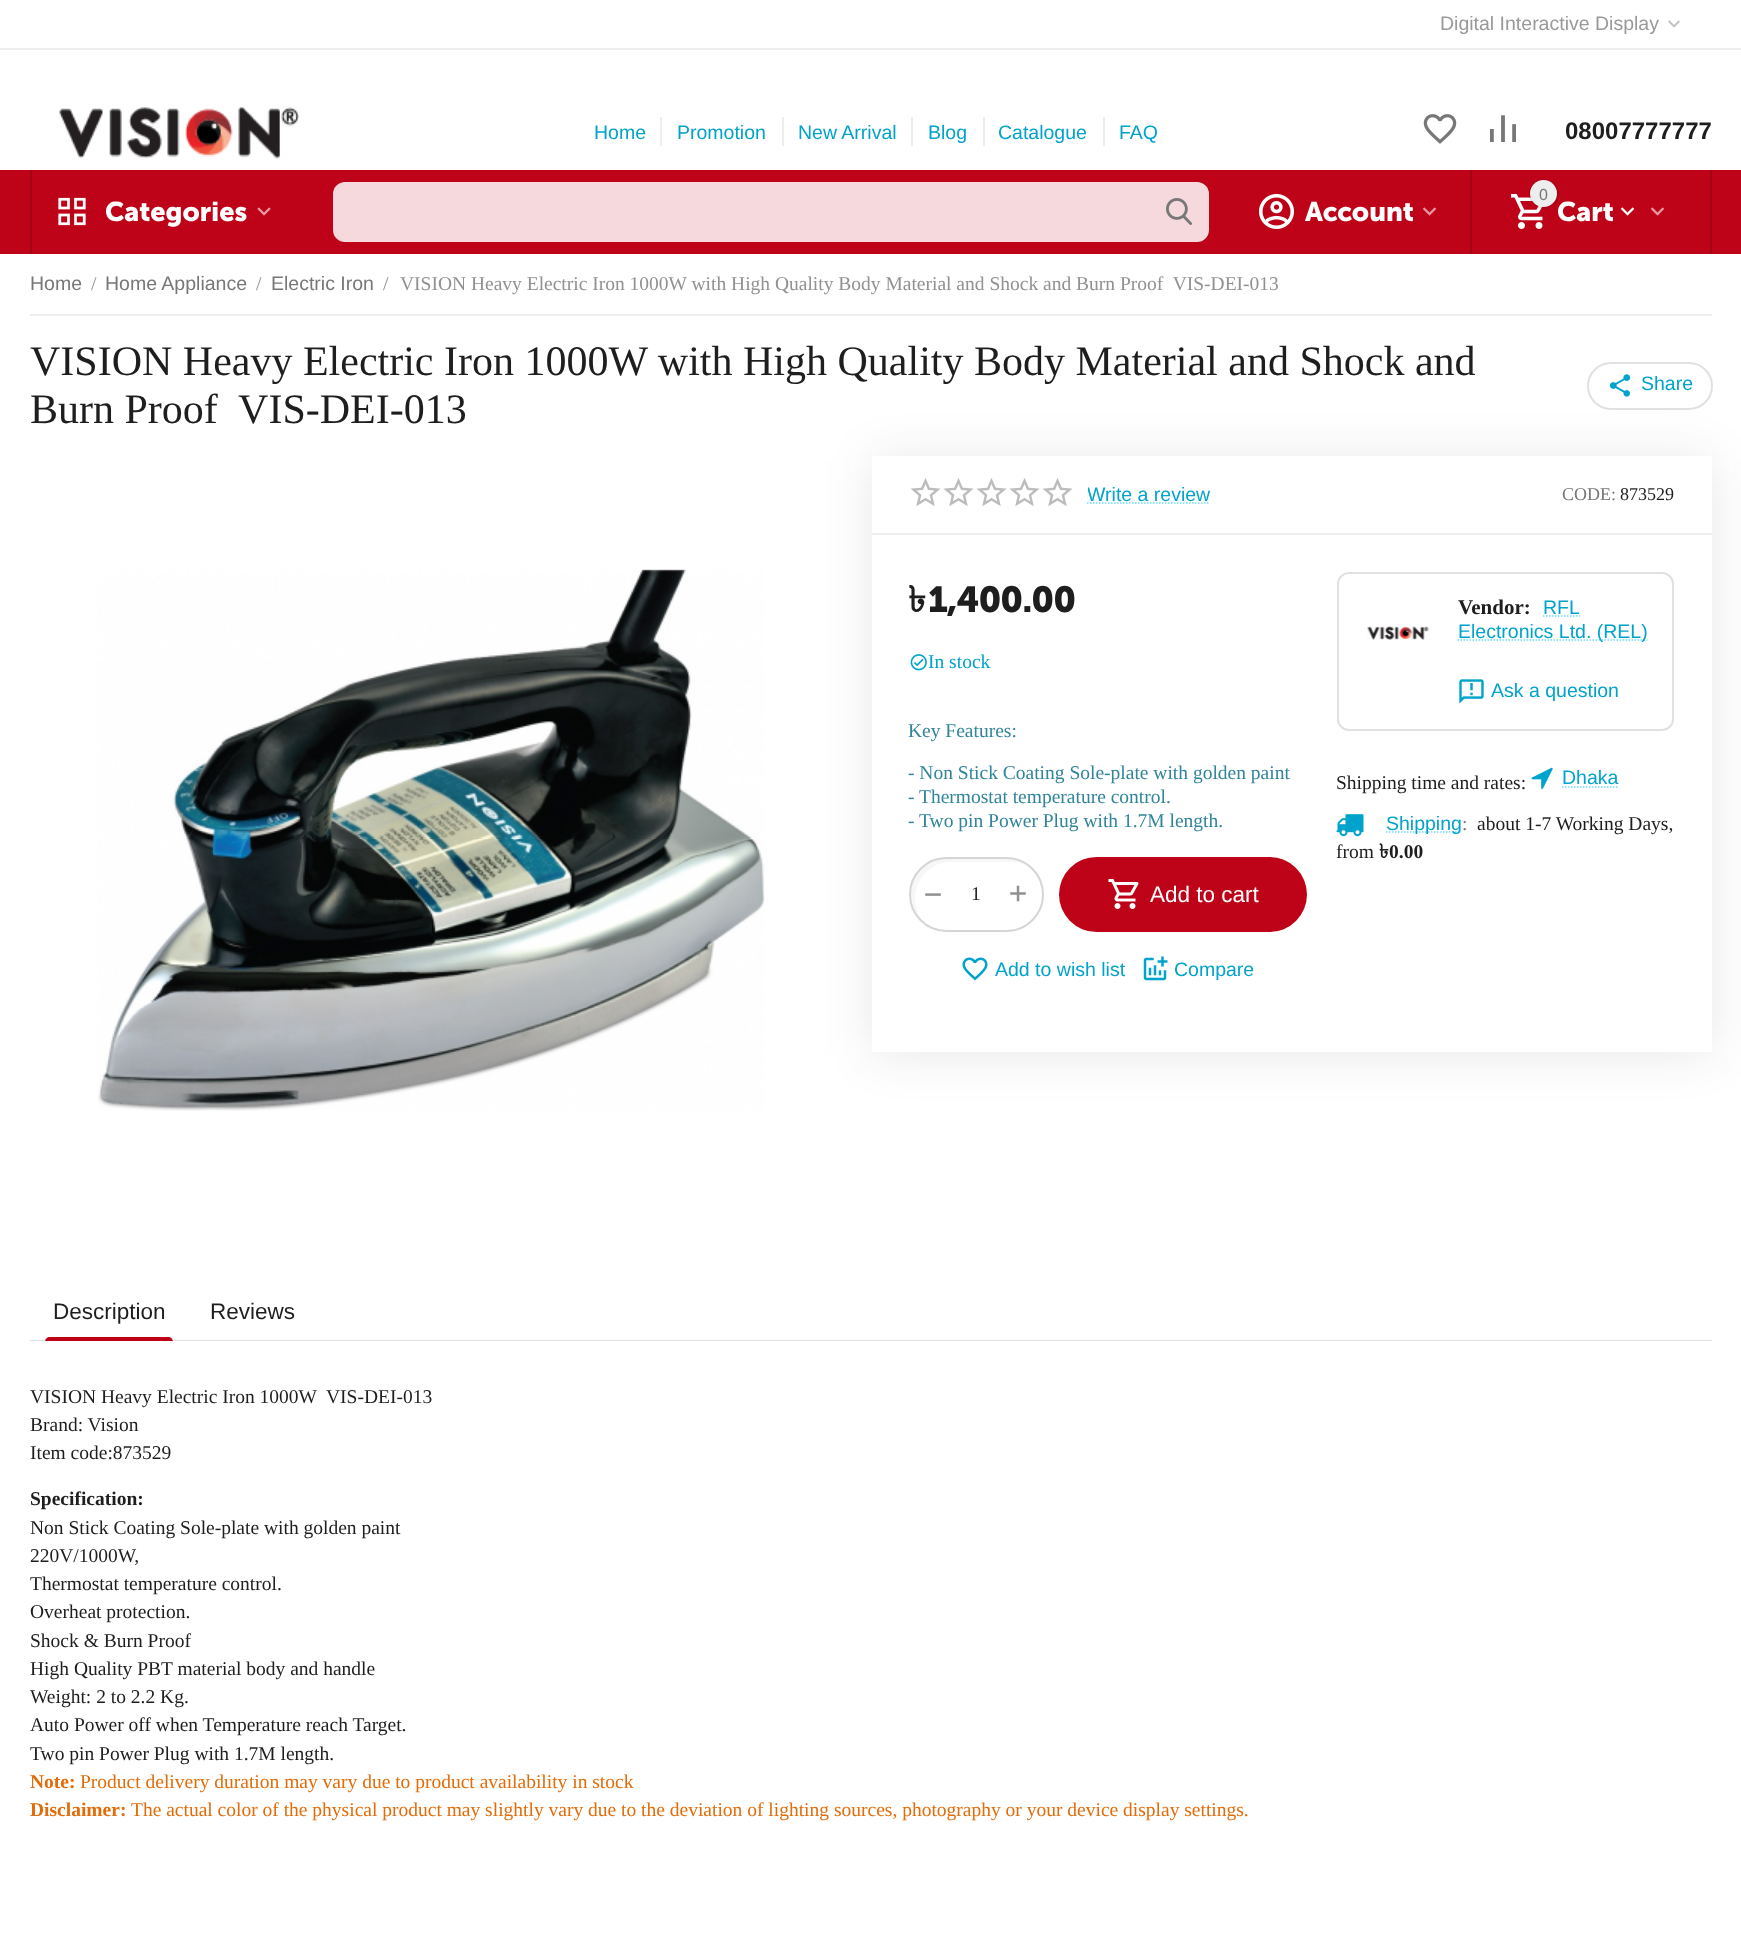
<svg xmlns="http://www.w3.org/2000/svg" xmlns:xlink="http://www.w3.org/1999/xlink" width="1741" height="1952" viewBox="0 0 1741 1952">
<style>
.cls-1{font:19.5px Liberation Sans;fill:#999999}
.cls-2{font:19.5px Liberation Sans;fill:#00a3cb}
.cls-3{font:bold 24px Liberation Sans;fill:#1e1e1e}
.cls-4{font:bold 27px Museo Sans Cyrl;fill:#ffffff}
.cls-5{font:16px Liberation Sans;fill:#777777}
.cls-6{font:19.5px Liberation Sans;fill:#777777}
.cls-7{font:19.5px Liberation Serif;fill:#919191}
.cls-8{font:42px Liberation Serif;fill:#1e1e1e}
.cls-9{font:18px Liberation Serif;fill:#777777}
.cls-10{font:18px Liberation Serif;fill:#1e1e1e}
.cls-11{font:bold 36px Lohit Bengali;letter-spacing:-1px;fill:#1e1e1e}
.cls-12{font:bold 36px Museo Sans Cyrl;letter-spacing:-1px;fill:#1e1e1e}
.cls-13{font:19.5px Liberation Serif;fill:#00a3cb}
.cls-14{font:19.5px Liberation Serif;fill:#31859b}
.cls-15{font:30px DejaVu Sans Mono;fill:#919191}
.cls-16{font:19.5px Liberation Serif;fill:#1e1e1e}
.cls-17{font:22.5px Liberation Sans;fill:#ffffff}
.cls-18{font:bold 21px Liberation Serif;fill:#1e1e1e}
.cls-19{font:19.5px Liberation Serif;fill:#777777}
.cls-20{font:bold 19.5px Lohit Bengali;fill:#1e1e1e}
.cls-21{font:bold 19.5px Liberation Serif;fill:#1e1e1e}
.cls-22{font:22.5px Liberation Sans;fill:#1e1e1e}
.cls-23{font:bold 19.5px Liberation Serif;fill:#e36c09}
.cls-24{font:19.5px Liberation Serif;fill:#e36c09}
</style>
<defs>
<clipPath id="clip1"><rect x="1088" y="480" width="123" height="29"/></clipPath>
</defs>
<rect width="100%" height="100%" fill="#ffffff"/>
<rect fill="#eeeeee" x="0" y="48" width="1741" height="2"/>
<image xlink:href="image0.png" x="1668" y="20" width="12" height="8"/>
<image xlink:href="image1.png" x="59" y="107" width="241" height="53"/>
<rect fill="#eeeeee" x="660" y="117" width="2" height="29"/>
<rect fill="#eeeeee" x="782" y="117" width="2" height="29"/>
<rect fill="#eeeeee" x="911" y="117" width="2" height="29"/>
<rect fill="#eeeeee" x="983" y="117" width="2" height="29"/>
<rect fill="#eeeeee" x="1103" y="117" width="2" height="29"/>
<image xlink:href="image2.png" x="1423" y="114" width="34" height="30"/>
<image xlink:href="image3.png" x="1490" y="115" width="26" height="27"/>
<rect fill="#be0318" x="0" y="170" width="1741" height="84"/>
<rect fill="#a50315" x="30" y="170" width="2" height="84"/>
<image xlink:href="image4.png" x="58" y="197" width="28" height="29"/>
<image xlink:href="image5.png" x="257" y="207" width="14" height="9"/>
<rect fill="#f5d9dc" x="333" y="182" width="876" height="60" rx="12"/>
<image xlink:href="image6.png" x="1166" y="198" width="26" height="27"/>
<rect fill="#a50315" x="1470" y="170" width="2" height="84"/>
<image xlink:href="image7.png" x="1259" y="194" width="35" height="35"/>
<image xlink:href="image8.png" x="1422" y="207" width="15" height="9"/>
<rect fill="#a50315" x="1710" y="170" width="2" height="84"/>
<image xlink:href="image9.png" x="1511" y="194" width="32" height="35"/>
<circle fill="none" stroke="#000000" stroke-opacity="0.1" stroke-width="2" cx="1544" cy="194" r="14"/>
<circle fill="#eeeeee" cx="1543.5" cy="193.5" r="13.5"/>
<image xlink:href="image10.png" x="1620" y="207" width="15" height="9"/>
<image xlink:href="image8.png" x="1650" y="207" width="15" height="9"/>
<rect fill="#eeeeee" x="30" y="314" width="1682" height="2"/>
<rect fill="#1e1e1e" fill-opacity="0.1" filter="blur(24px)" x="872" y="459" width="840" height="596"/>
<rect fill="none" stroke="#e1e1e1" stroke-width="2" x="1588" y="363" width="124" height="46" rx="23"/>
<image xlink:href="image11.png" x="1609" y="374" width="22" height="23"/>
<image xlink:href="image12.png" x="97" y="569" width="668" height="542"/>
<rect fill="#ffffff" x="872" y="456" width="840" height="596"/>
<rect fill="#eeeeee" x="872" y="533" width="840" height="2"/>
<image xlink:href="image13.png" x="910" y="478" width="163" height="28"/>
<path fill="none" stroke="#6ddcf7" stroke-width="1.5" stroke-dasharray="1.5 1.5" d="M1087 503H1210"/>
<image xlink:href="image14.png" x="910" y="654" width="17" height="17"/>
<path fill="#f7f7f7" d="M951 862H1011C1020 862 1029 866 1035 872C1029 863 1018 858 1007 858H947C927 858 911 874 911 894C911 905 916 915 923 921C904 898 921 862 951 862Z"/>
<rect fill="none" stroke="#d5d5d5" stroke-width="2" x="910" y="858" width="133" height="73" rx="36.5"/>
<rect fill="#be0318" x="1059" y="857" width="248" height="75" rx="37.5"/>
<image xlink:href="image15.png" x="1108" y="879" width="31" height="30"/>
<image xlink:href="image16.png" x="962" y="957" width="26" height="24"/>
<image xlink:href="image17.png" x="1143" y="956" width="25" height="25"/>
<rect fill="none" stroke="#e1e1e1" stroke-width="2" x="1338" y="573" width="335" height="157" rx="11"/>
<image xlink:href="image18.png" x="1367" y="626" width="63" height="14"/>
<path fill="none" stroke="#6ddcf7" stroke-width="1.5" stroke-dasharray="1.5 1.5" d="M1543 616H1580"/>
<path fill="none" stroke="#6ddcf7" stroke-width="1.5" stroke-dasharray="1.5 1.5" d="M1457.5 640H1647.5"/>
<image xlink:href="image19.png" x="1459" y="679" width="25" height="25"/>
<image xlink:href="image20.png" x="1531" y="767" width="22" height="22"/>
<path fill="none" stroke="#6ddcf7" stroke-width="1.5" stroke-dasharray="1.5 1.5" d="M1562 787H1618.5"/>
<image xlink:href="image21.png" x="1336" y="814" width="28" height="23"/>
<path fill="none" stroke="#6ddcf7" stroke-width="1.5" stroke-dasharray="1.5 1.5" d="M1386 832H1461.5"/>
<rect fill="#e1e1e1" x="30" y="1340" width="1682" height="1"/>
<path fill="#be0318" d="M50 1337H168C171 1337 173 1339 173 1342V1341H45V1342C45 1339 47 1337 50 1337Z"/>
<text class="cls-1" x="1440" y="30">Digital Interactive Display</text>
<text class="cls-2" x="594" y="139">Home</text>
<text class="cls-2" x="677" y="139">Promotion</text>
<text class="cls-2" x="798" y="139">New Arrival</text>
<text class="cls-2" x="928" y="139">Blog</text>
<text class="cls-2" x="998" y="139">Catalogue</text>
<text class="cls-2" x="1119" y="139">FAQ</text>
<text class="cls-3" x="1565" y="139">08007777777</text>
<text class="cls-4" x="105" y="221">Categories</text>
<text class="cls-4" x="1305" y="221">Account</text>
<text class="cls-5" x="1539" y="200">0</text>
<text class="cls-4" x="1557" y="221">Cart</text>
<text class="cls-6" x="30" y="290">Home</text>
<text class="cls-7" x="91" y="290">/</text>
<text class="cls-6" x="105" y="290">Home Appliance</text>
<text class="cls-7" x="256" y="290">/</text>
<text class="cls-6" x="271" y="290">Electric Iron</text>
<text class="cls-7" x="383" y="290">/</text>
<text class="cls-7" xml:space="preserve" x="400" y="290">VISION Heavy Electric Iron 1000W with High Quality Body Material and Shock and Burn Proof  VIS-DEI-013</text>
<text class="cls-8" xml:space="preserve"><tspan x="30" y="375">VISION Heavy Electric Iron 1000W with High Quality Body Material and Shock and</tspan><tspan x="30" y="423">Burn Proof  VIS-DEI-013</tspan></text>
<text class="cls-2" x="1641" y="390">Share</text>
<g clip-path="url(#clip1)">
<text class="cls-2" x="1087" y="501">Write a review</text>
</g>
<text class="cls-9" x="1562" y="500">CODE:</text>
<text class="cls-10" x="1620" y="500">873529</text>
<text class="cls-11" x="908" y="612">৳</text>
<text class="cls-12" x="928" y="612">1,400.00</text>
<text class="cls-13" x="928" y="668">In stock</text>
<text class="cls-14" x="908" y="737">Key Features:</text>
<text class="cls-14"><tspan x="908" y="779">- Non Stick Coating Sole-plate with golden paint</tspan><tspan x="908" y="803">- Thermostat temperature control.</tspan><tspan x="908" y="827">- Two pin Power Plug with 1.7M length.</tspan></text>
<text class="cls-15" x="924" y="904">−</text>
<text class="cls-16" x="971" y="900">1</text>
<text class="cls-15" x="1009" y="903">+</text>
<text class="cls-17" x="1150" y="902">Add to cart</text>
<text class="cls-2" x="995" y="976">Add to wish list</text>
<text class="cls-2" x="1174" y="976">Compare</text>
<text class="cls-18" x="1458" y="614">Vendor:</text>
<text class="cls-2" x="1543" y="614">RFL</text>
<text class="cls-2" x="1458" y="638">Electronics Ltd. (REL)</text>
<text class="cls-2" x="1491" y="697">Ask a question</text>
<text class="cls-16" x="1336" y="789">Shipping time and rates:</text>
<text class="cls-2" x="1562" y="784">Dhaka</text>
<text class="cls-2" x="1386" y="830">Shipping</text>
<text class="cls-19" x="1462" y="830">:</text>
<text class="cls-16" x="1477" y="830">about 1-7 Working Days,</text>
<text class="cls-16" x="1336" y="858">from</text>
<text class="cls-20" x="1379" y="858">৳</text>
<text class="cls-21" x="1389" y="858">0.00</text>
<text class="cls-22" x="53" y="1319">Description</text>
<text class="cls-22" x="210" y="1319">Reviews</text>
<text class="cls-16" xml:space="preserve"><tspan x="30" y="1403">VISION Heavy Electric Iron 1000W  VIS-DEI-013</tspan><tspan x="30" y="1431">Brand: Vision</tspan><tspan x="30" y="1459">Item code:873529</tspan></text>
<text class="cls-21" x="30" y="1505">Specification:</text>
<text class="cls-16"><tspan x="30" y="1534">Non Stick Coating Sole-plate with golden paint</tspan><tspan x="30" y="1562">220V/1000W,</tspan><tspan x="30" y="1590">Thermostat temperature control.</tspan><tspan x="30" y="1618">Overheat protection.</tspan><tspan x="30" y="1647">Shock &amp; Burn Proof</tspan><tspan x="30" y="1675">High Quality PBT material body and handle</tspan><tspan x="30" y="1703">Weight: 2 to 2.2 Kg.</tspan><tspan x="30" y="1731">Auto Power off when Temperature reach Target.</tspan><tspan x="30" y="1760">Two pin Power Plug with 1.7M length.</tspan></text>
<text class="cls-23" x="30" y="1788">Note:</text>
<text class="cls-24" x="80" y="1788">Product delivery duration may vary due to product availability in stock</text>
<text class="cls-23" x="30" y="1816">Disclaimer:</text>
<text class="cls-24" x="131" y="1816">The actual color of the physical product may slightly vary due to the deviation of lighting sources, photography or your device display settings.</text>
</svg>
